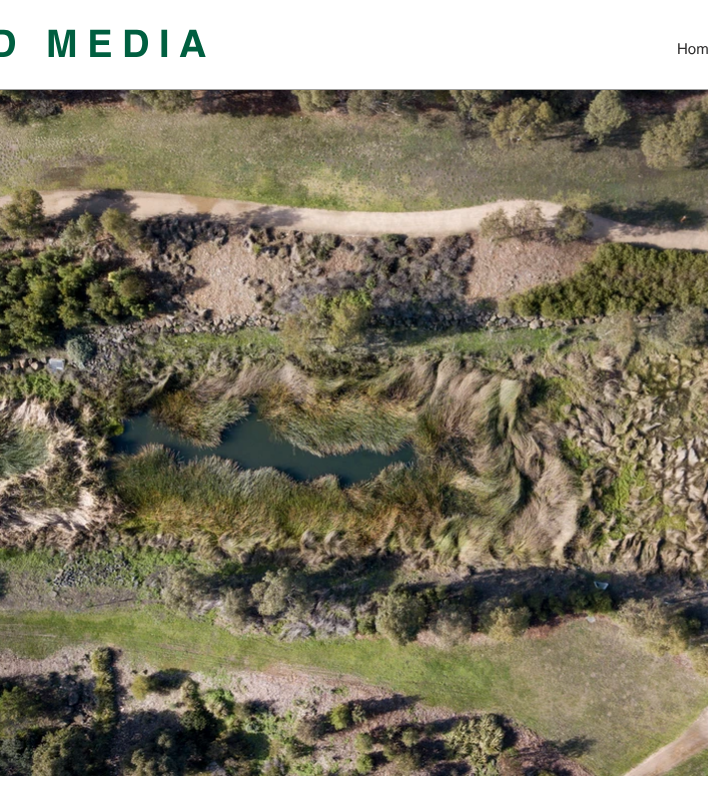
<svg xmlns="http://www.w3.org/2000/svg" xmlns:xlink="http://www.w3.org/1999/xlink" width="708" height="803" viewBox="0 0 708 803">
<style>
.cls-1{font:bold 38px helvetica;letter-spacing:9.5px;fill:#005f40}
.cls-2{font:15px helvetica;fill:#2f2e2e}
</style>
<rect width="100%" height="100%" fill="#ffffff"/>
<rect fill="#a0a09f" x="0" y="89" width="708" height="1"/>
<image xlink:href="image0.png" x="0" y="90" width="708" height="686"/>
<text class="cls-1" x="-11" y="57">D MEDIA</text>
<text class="cls-2" x="677" y="54">Hom</text>
</svg>
